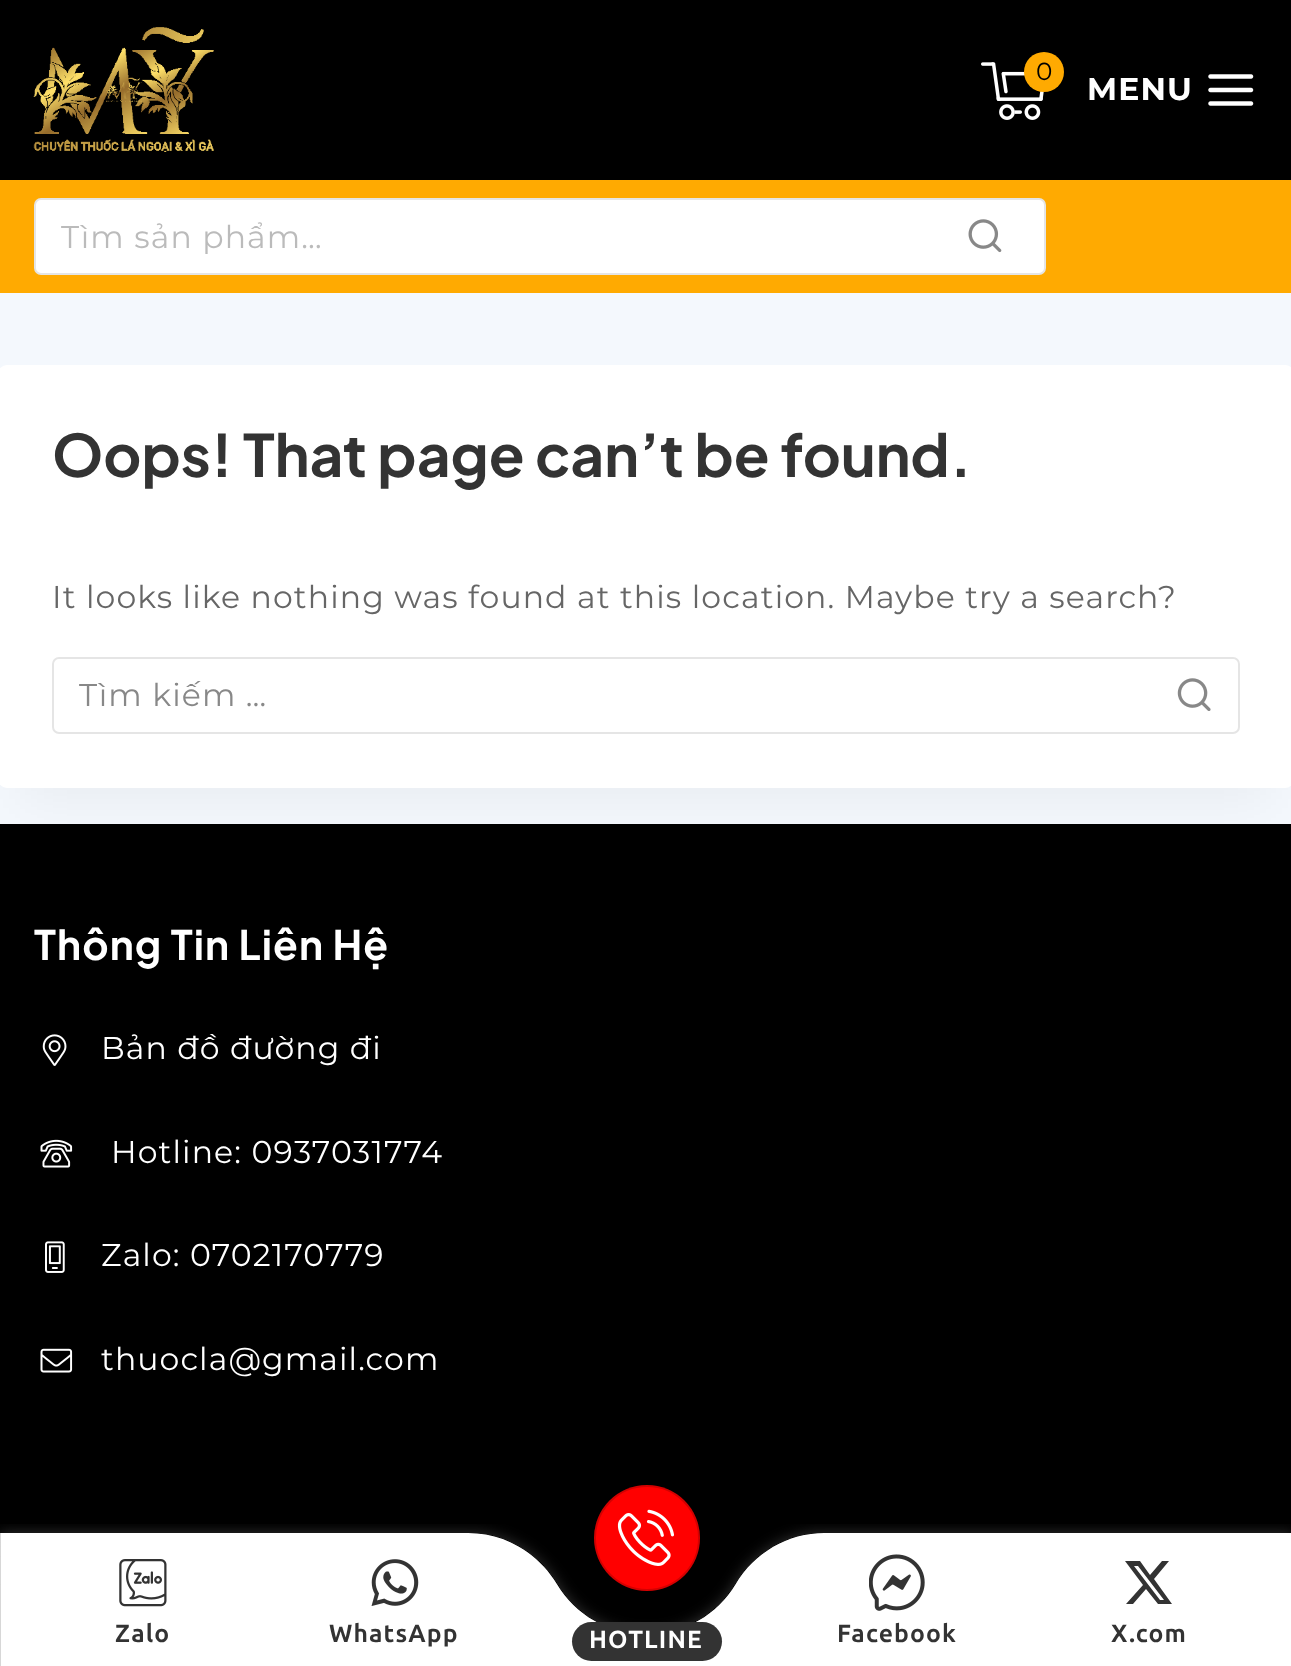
<svg xmlns="http://www.w3.org/2000/svg" xmlns:xlink="http://www.w3.org/1999/xlink" width="1291" height="1666" viewBox="0 0 1291 1666">
<style>
.cls-1{font:24.75px Montserrat;fill:#000000}
.cls-2{font:bold 31.5px Montserrat;letter-spacing:1.12px;fill:#ffffff}
.cls-3{font:31.5px Montserrat;letter-spacing:1.12px;fill:#bbbbbb}
.cls-4{font:bold 58.5px Plus Jakarta Sans;fill:#333333}
.cls-5{font:31.5px Montserrat;letter-spacing:1.12px;fill:#666666}
.cls-6{font:31.5px Montserrat;letter-spacing:1.12px;fill:#888888}
.cls-7{font:bold 40.5px Plus Jakarta Sans;letter-spacing:1.12px;fill:#ffffff}
.cls-8{font:31.5px Montserrat;letter-spacing:1.12px;fill:#ffffff}
.cls-9{font:bold 24.75px Ubuntu;letter-spacing:1.12px;fill:#333333}
.cls-10{font:bold 24.75px Ubuntu;letter-spacing:1.12px;fill:#ffffff}
</style>
<rect width="100%" height="100%" fill="#f4f8fd"/>
<rect fill="#000000" x="0" y="0" width="1291" height="180"/>
<image xlink:href="image0.png" x="33" y="27" width="181" height="125"/>
<image xlink:href="image1.png" x="981" y="62" width="63" height="58"/>
<circle fill="#ffaa01" cx="1044" cy="72" r="20"/>
<image xlink:href="image2.png" x="1208" y="74" width="46" height="32"/>
<rect fill="#ffaa01" x="0" y="180" width="1291" height="113"/>
<rect fill="#ffffff" stroke="#e5e5e5" stroke-width="2" x="35" y="199" width="1010" height="75" rx="6"/>
<image xlink:href="image3.png" x="968" y="219" width="34" height="34"/>
<rect fill="#000000" x="0" y="824" width="1291" height="842"/>
<rect fill="#000000" fill-opacity="0.05" filter="blur(28px)" x="20" y="421" width="1251" height="378"/>
<rect fill="#ffffff" x="-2" y="365" width="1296" height="423" rx="9"/>
<rect fill="none" stroke="#e5e5e5" stroke-width="2" x="53" y="658" width="1186" height="75" rx="6"/>
<image xlink:href="image4.png" x="1177" y="678" width="34" height="33"/>
<image xlink:href="image5.png" x="42" y="1034" width="25" height="32"/>
<image xlink:href="image6.png" x="40" y="1139" width="33" height="29"/>
<image xlink:href="image7.png" x="45" y="1241" width="20" height="32"/>
<image xlink:href="image8.png" x="40" y="1348" width="33" height="25"/>
<image xlink:href="image9.png" x="0" y="1524" width="1291" height="142"/>
<image xlink:href="image10.png" x="119" y="1559" width="48" height="48"/>
<image xlink:href="image11.png" x="371" y="1559" width="48" height="47"/>
<circle fill="#ff0000" cx="647" cy="1538" r="53"/>
<circle fill="none" stroke="#000000" stroke-opacity="0.17" stroke-width="2" cx="647" cy="1538" r="52"/>
<image xlink:href="image12.png" x="617" y="1509" width="57" height="57"/>
<rect fill="#333333" x="572" y="1622" width="150" height="39" rx="19.5"/>
<image xlink:href="image13.png" x="869" y="1554" width="56" height="57"/>
<path fill="#333333" d="M1162 1561H1169L1154 1579L1172 1604H1158L1146 1589L1133 1604H1126L1143 1585L1125 1561H1140L1150 1575ZM1160 1600H1164L1138 1566H1134Z"/>
<text class="cls-1" x="1036" y="80">0</text>
<text class="cls-2" x="1087" y="100">MENU</text>
<text class="cls-3" x="61" y="248">Tìm sản phẩm…</text>
<text class="cls-4" x="52" y="477">Oops! That page can’t be found.</text>
<text class="cls-5" x="52" y="608">It looks like nothing was found at this location. Maybe try a search?</text>
<text class="cls-6" x="79" y="706">Tìm kiếm …</text>
<text class="cls-7" x="34" y="960">Thông Tin Liên Hệ</text>
<text class="cls-8" x="101" y="1059">Bản đồ đường đi</text>
<text class="cls-8" x="111" y="1163">Hotline: 0937031774</text>
<text class="cls-8" x="101" y="1266">Zalo: 0702170779</text>
<text class="cls-8" x="101" y="1370">thuocla@gmail.com</text>
<text class="cls-9" x="115" y="1642">Zalo</text>
<text class="cls-9" x="329" y="1642">WhatsApp</text>
<text class="cls-10" x="589" y="1648">HOTLINE</text>
<text class="cls-9" x="837" y="1642">Facebook</text>
<text class="cls-9" x="1111" y="1642">X.com</text>
</svg>
